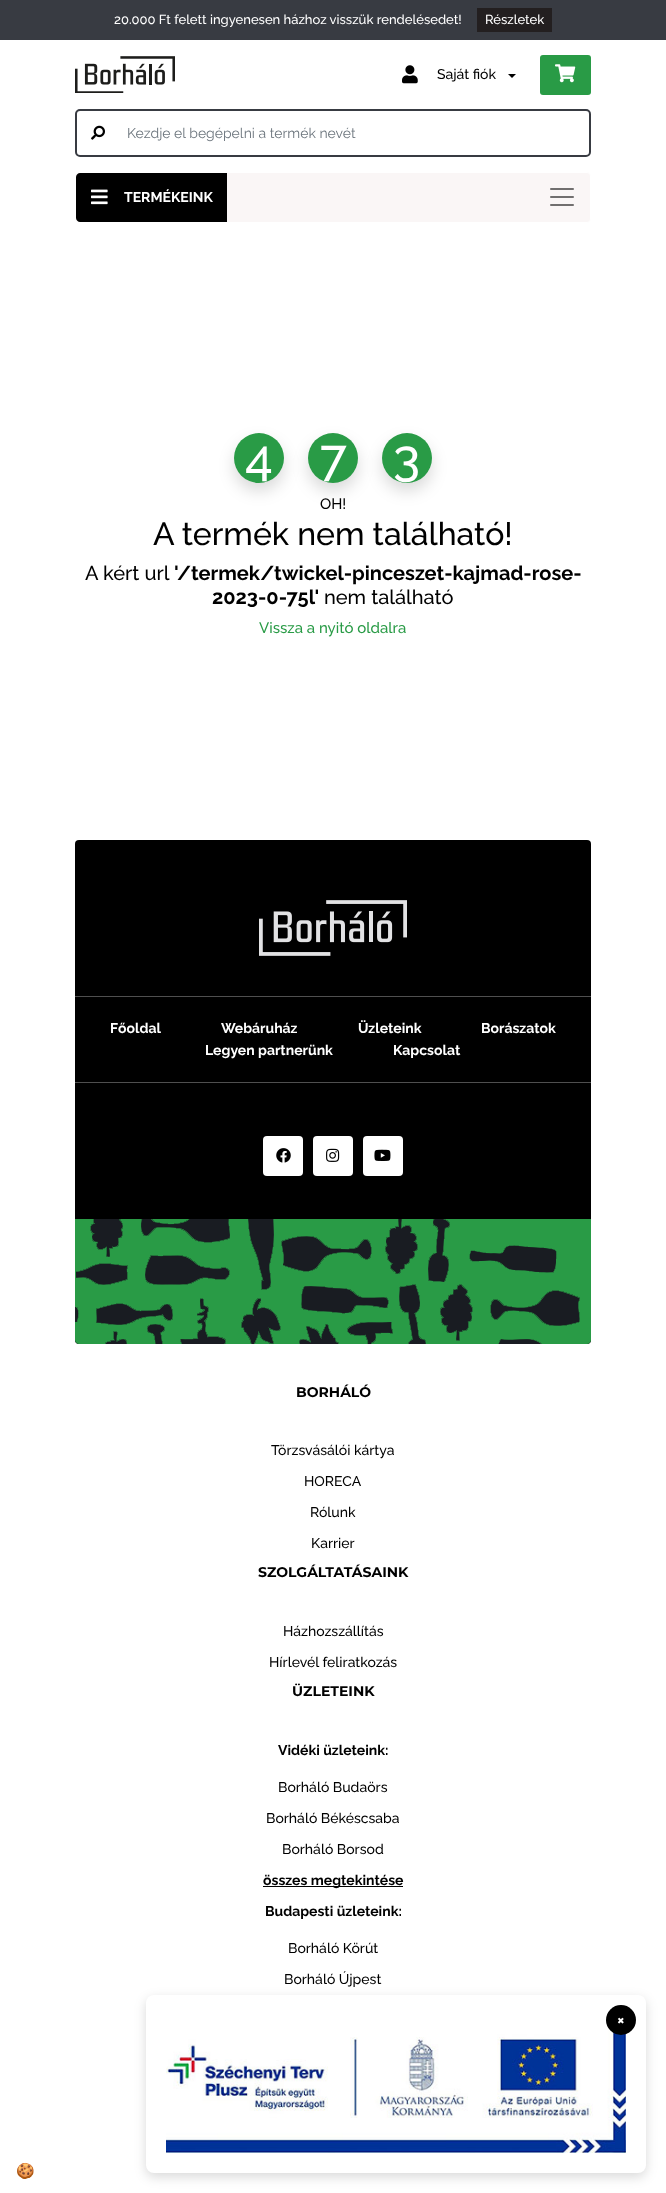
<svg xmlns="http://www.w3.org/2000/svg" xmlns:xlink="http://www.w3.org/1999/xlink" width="666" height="2193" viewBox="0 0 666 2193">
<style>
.cls-1{font:500 13px Raleway;fill:#ffffff}
.cls-2{font:500 14px Raleway;fill:#000000}
.cls-3{font:14px Raleway;fill:#6c757d}
.cls-4{font:bold 14px Raleway;fill:#ffffff}
.cls-5{font:500 50px Raleway;fill:#ffffff}
.cls-6{font:500 15px Raleway;fill:#000000}
.cls-7{font:500 32px Raleway;fill:#000000}
.cls-8{font:500 20px Raleway;fill:#000000}
.cls-9{font:bold 20px Raleway;fill:#000000}
.cls-10{font:500 15px Raleway;fill:#299b46}
.cls-11{font:bold 14px Montserrat;fill:#000000}
.cls-12{font:bold 14px Raleway;fill:#000000}
.cls-13{font:bold 16px Raleway;fill:#ffffff}
.cls-14{font:15px Noto Color Emoji;fill:#000000}
</style>
<rect width="100%" height="100%" fill="#ffffff"/>
<rect fill="#383b42" x="0" y="0" width="666" height="40"/>
<rect fill="#231f20" x="477" y="8" width="75" height="24"/>
<image xlink:href="image0.png" x="75" y="56" width="100" height="37"/>
<image xlink:href="image1.png" x="402" y="65" width="16" height="19"/>
<path fill="#000000" d="M508 74H516L512 78Z"/>
<rect fill="#299b46" x="540" y="55" width="51" height="40" rx="3"/>
<image xlink:href="image2.png" x="555" y="64" width="21" height="19"/>
<rect fill="none" stroke="#383b42" stroke-width="2" x="76" y="110" width="514" height="46" rx="4"/>
<image xlink:href="image3.png" x="91" y="125" width="14" height="15"/>
<rect fill="#faf6f6" stroke="#ffffff" x="75.5" y="172.5" width="515" height="50" rx="3.5"/>
<path fill="#000000" d="M80 173H227V222H80C78 222 76 220 76 218V177C76 175 78 173 80 173Z"/>
<image xlink:href="image4.png" x="91" y="189" width="17" height="16"/>
<image xlink:href="image5.png" x="550" y="188" width="24" height="18"/>
<rect fill="#000000" fill-opacity="0.15" filter="blur(8px)" x="234" y="441" width="50" height="50" rx="25"/>
<circle fill="#299b46" cx="259" cy="458" r="25"/>
<rect fill="#000000" fill-opacity="0.15" filter="blur(8px)" x="308" y="441" width="50" height="50" rx="25"/>
<circle fill="#299b46" cx="333" cy="458" r="25"/>
<rect fill="#000000" fill-opacity="0.15" filter="blur(8px)" x="382" y="441" width="50" height="50" rx="25"/>
<circle fill="#299b46" cx="407" cy="458" r="25"/>
<rect fill="#000000" x="75" y="840" width="516" height="504" rx="4"/>
<image xlink:href="image6.png" x="259" y="900" width="148" height="56"/>
<rect fill="#4f4f4f" x="75" y="996" width="516" height="1"/>
<rect fill="#4f4f4f" x="75" y="1082" width="516" height="1"/>
<rect fill="#ffffff" x="263" y="1136" width="40" height="40" rx="4"/>
<image xlink:href="image7.png" x="276" y="1148" width="15" height="15"/>
<rect fill="#ffffff" x="313" y="1136" width="40" height="40" rx="4"/>
<image xlink:href="image8.png" x="326" y="1148" width="14" height="14"/>
<rect fill="#ffffff" x="363" y="1136" width="40" height="40" rx="4"/>
<image xlink:href="image9.png" x="374" y="1149" width="17" height="12"/>
<path fill="#299b46" d="M75 1219H591V1340C591 1342 589 1344 587 1344H79C77 1344 75 1342 75 1340Z"/>
<image xlink:href="image10.png" x="75" y="1219" width="505" height="125"/>
<rect fill="#000000" x="263" y="1886" width="140" height="1"/>
<rect fill="#000000" fill-opacity="0.15" filter="blur(6px)" x="146" y="1999" width="500" height="178" rx="8"/>
<rect fill="#ffffff" x="146" y="1995" width="500" height="178" rx="8"/>
<image xlink:href="image11.png" x="166" y="2015" width="460" height="138"/>
<circle fill="#000000" cx="621" cy="2020" r="15"/>
<text class="cls-1" x="114" y="24">20.000 Ft felett ingyenesen házhoz visszük rendelésedet!</text>
<text class="cls-1" x="485" y="24">Részletek</text>
<text class="cls-2" x="437" y="79">Saját fiók</text>
<text class="cls-3" x="127" y="138">Kezdje el begépelni a termék nevét</text>
<text class="cls-4" x="124" y="202">TERMÉKEINK</text>
<text class="cls-5" x="245" y="475">4</text>
<text class="cls-5" x="320" y="475">7</text>
<text class="cls-5" x="393" y="475">3</text>
<text class="cls-6" x="320" y="509">OH!</text>
<text class="cls-7" x="153" y="545">A termék nem található!</text>
<text class="cls-8" x="85" y="580">A kért url</text>
<text class="cls-9" x="174" y="580">'/termek/twickel-pinceszet-kajmad-rose-</text>
<text class="cls-9" x="212" y="604">2023-0-75l'</text>
<text class="cls-8" x="324" y="604">nem található</text>
<text class="cls-10" x="259" y="633">Vissza a nyitó oldalra</text>
<text class="cls-4" x="110" y="1033">Főoldal</text>
<text class="cls-4" x="221" y="1033">Webáruház</text>
<text class="cls-4" x="358" y="1033">Üzleteink</text>
<text class="cls-4" x="481" y="1033">Borászatok</text>
<text class="cls-4" x="205" y="1055">Legyen partnerünk</text>
<text class="cls-4" x="393" y="1055">Kapcsolat</text>
<text class="cls-11" x="296" y="1397">BORHÁLÓ</text>
<text class="cls-2" x="271" y="1455">Törzsvásálói kártya</text>
<text class="cls-2" x="304" y="1486">HORECA</text>
<text class="cls-2" x="310" y="1517">Rólunk</text>
<text class="cls-2" x="311" y="1548">Karrier</text>
<text class="cls-11" x="258" y="1577">SZOLGÁLTATÁSAINK</text>
<text class="cls-2" x="283" y="1636">Házhozszállítás</text>
<text class="cls-2" x="269" y="1667">Hírlevél feliratkozás</text>
<text class="cls-11" x="292" y="1696">ÜZLETEINK</text>
<text class="cls-12" x="278" y="1755">Vidéki üzleteink:</text>
<text class="cls-2" x="278" y="1792">Borháló Budaörs</text>
<text class="cls-2" x="266" y="1823">Borháló Békéscsaba</text>
<text class="cls-2" x="282" y="1854">Borháló Borsod</text>
<text class="cls-12" x="263" y="1885">összes megtekintése</text>
<text class="cls-12" x="265" y="1916">Budapesti üzleteink:</text>
<text class="cls-2" x="288" y="1953">Borháló Körút</text>
<text class="cls-2" x="284" y="1984">Borháló Újpest</text>
<text class="cls-13" x="617" y="2025">×</text>
<text class="cls-14" x="16" y="2176">🍪</text>
</svg>
